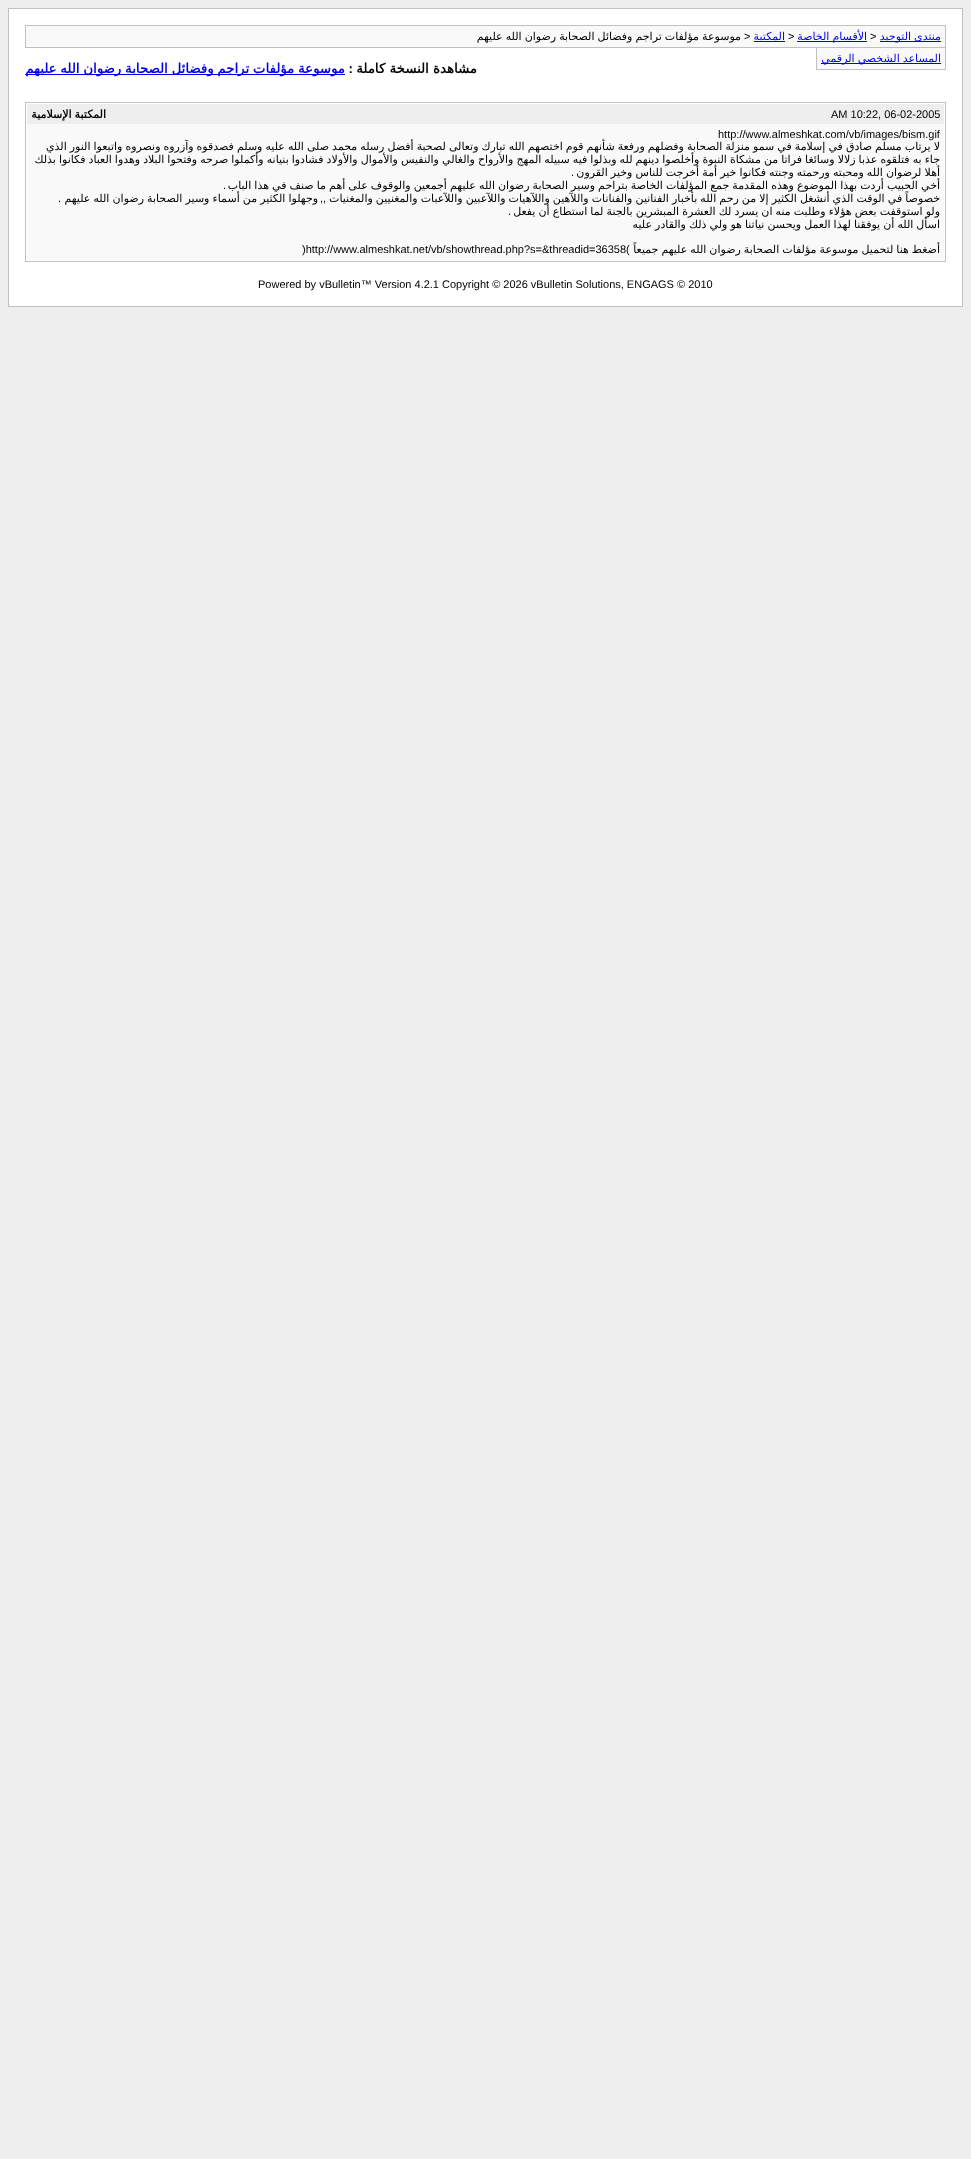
<svg xmlns="http://www.w3.org/2000/svg" xmlns:xlink="http://www.w3.org/1999/xlink" width="971" height="2159" viewBox="0 0 971 2159">
<style>
.cls-1{font:11px DejaVu Sans;direction:rtl;fill:#0000ee}
.cls-2{font:11px Liberation Sans;fill:#000000}
.cls-3{font:11px DejaVu Sans;direction:rtl;fill:#000000}
.cls-4{font:bold 13.3px DejaVu Sans;direction:rtl;fill:#000000}
.cls-5{font:bold 13.3px Liberation Sans;direction:rtl;fill:#000000}
.cls-6{font:bold 13.3px DejaVu Sans;direction:rtl;fill:#0000ee}
.cls-7{font:bold 11px DejaVu Sans;direction:rtl;fill:#000000}
.cls-8{font:11px Liberation Sans;direction:rtl;fill:#000000}
</style>
<rect width="100%" height="100%" fill="#eeeeee"/>
<rect fill="#ffffff" stroke="#c0c0c0" x="8.5" y="8.5" width="954" height="298"/>
<rect fill="#f9f9f9" stroke="#c0c0c0" x="25.5" y="25.5" width="920" height="22"/>
<rect fill="#0000ee" x="880" y="41" width="61" height="1"/>
<rect fill="#0000ee" x="797" y="41" width="70" height="1"/>
<rect fill="#0000ee" x="754" y="41" width="31" height="1"/>
<rect fill="#f9f9f9" x="817" y="48" width="128" height="21"/>
<rect fill="#c0c0c0" x="945" y="48" width="1" height="22"/>
<rect fill="#c0c0c0" x="816" y="69" width="130" height="1"/>
<rect fill="#c0c0c0" x="816" y="48" width="1" height="22"/>
<rect fill="#0000ee" x="821" y="63" width="120" height="1"/>
<rect fill="#0000ee" x="25" y="74" width="320" height="1"/>
<rect fill="none" stroke="#c0c0c0" x="25.5" y="102.5" width="920" height="159"/>
<rect fill="#eeeeee" x="27" y="104" width="917" height="20"/>
<rect fill="#f9f9f9" x="27" y="124" width="917" height="136"/>
<text class="cls-1" x="941" y="40" word-spacing="-0.45">منتدى التوحيد</text>
<text class="cls-2" x="870" y="40">&gt;</text>
<text class="cls-1" x="867" y="40" word-spacing="-0.45">الأقسام الخاصة</text>
<text class="cls-2" x="788" y="40">&gt;</text>
<text class="cls-1" x="785" y="40">المكتبة</text>
<text class="cls-2" x="744" y="40">&gt;</text>
<text class="cls-3" x="741" y="40" word-spacing="-0.45">موسوعة مؤلفات تراجم وفضائل الصحابة رضوان الله عليهم</text>
<text class="cls-1" x="941" y="62" word-spacing="-0.45">المساعد الشخصي الرقمي</text>
<text class="cls-4" x="477" y="73">مشاهدة النسخة كاملة</text>
<text class="cls-5" x="353" y="73">:</text>
<text class="cls-6" x="345" y="73" word-spacing="-0.5">موسوعة مؤلفات تراجم وفضائل الصحابة رضوان الله عليهم</text>
<text class="cls-2" x="831" y="118">AM 10:22, 06-02-2005</text>
<text class="cls-7" x="106" y="118" word-spacing="-0.45">المكتبة الإسلامية</text>
<text class="cls-2" x="718" y="138">http://www.almeshkat.com/vb/images/bism.gif</text>
<text class="cls-3"><tspan x="940" y="150" word-spacing="-0.45">لا يرتاب مسلم صادق في إسلامة في سمو منزلة الصحابة وفضلهم ورفعة شأنهم قوم اختصهم الله تبارك وتعالى لصحبة أفضل رسله محمد صلى الله عليه وسلم فصدقوه وآزروه ونصروه واتبعوا النور الذي</tspan><tspan x="940" y="163" word-spacing="-0.45">جاء به فتلقوه عذبا زلالا وسائغا فراتا من مشكاة النبوة وأخلصوا دينهم لله وبذلوا فيه سبيله المهج والأرواح والغالي والنفيس والأموال والأولاد فشادوا بنيانه وأكملوا صرحه وفتحوا البلاد وهدوا العباد فكانوا بذلك</tspan><tspan x="940" y="176" word-spacing="-0.4">أهلا لرضوان الله ومحبته ورحمته وجنته فكانوا خير أمة أخرجت للناس وخير القرون</tspan></text>
<text class="cls-8" x="574" y="176">.</text>
<text class="cls-3" x="940" y="189" word-spacing="-0.4">أخي الحبيب أردت بهذا الموضوع وهذه المقدمة جمع المؤلفات الخاصة بتراحم وسير الصحابة رضوان الله عليهم أجمعين والوقوف على أهم ما صنف في هذا الباب</text>
<text class="cls-8" x="226" y="189">.</text>
<text class="cls-3" x="940" y="202" word-spacing="-0.4">خصوصاً في الوقت الذي أنشغل الكثير إلا من رحم الله بأخبار الفنانين والفنانات واللآهين واللآهيات واللآعبين واللآعبات والمغنيين والمغنيات</text>
<text class="cls-8" x="326" y="202">,,</text>
<text class="cls-3" x="318" y="202" word-spacing="-0.4">وجهلوا الكثير من أسماء وسير الصحابة رضوان الله عليهم</text>
<text class="cls-8" x="61" y="202">.</text>
<text class="cls-3" x="940" y="215" word-spacing="-0.4">ولو استوقفت بعض هؤلاء وطلبت منه ان يسرد لك العشرة المبشرين بالجنة لما استطاع أن يفعل</text>
<text class="cls-8" x="511" y="215">.</text>
<text class="cls-3" x="940" y="228" word-spacing="-0.45">اسأل الله أن يوفقنا لهذا العمل ويحسن نياتنا هو ولي ذلك والقادر عليه</text>
<text class="cls-3" x="940" y="253" word-spacing="-0.45">أضغط هنا لتحميل موسوعة مؤلفات الصحابة رضوان الله عليهم جميعاً</text>
<text class="cls-2" x="302" y="253">)http://www.almeshkat.net/vb/showthread.php?s=&amp;threadid=36358(</text>
<text class="cls-2" x="258" y="288">Powered by vBulletin™ Version 4.2.1 Copyright © 2026 vBulletin Solutions, ENGAGS © 2010</text>
</svg>
